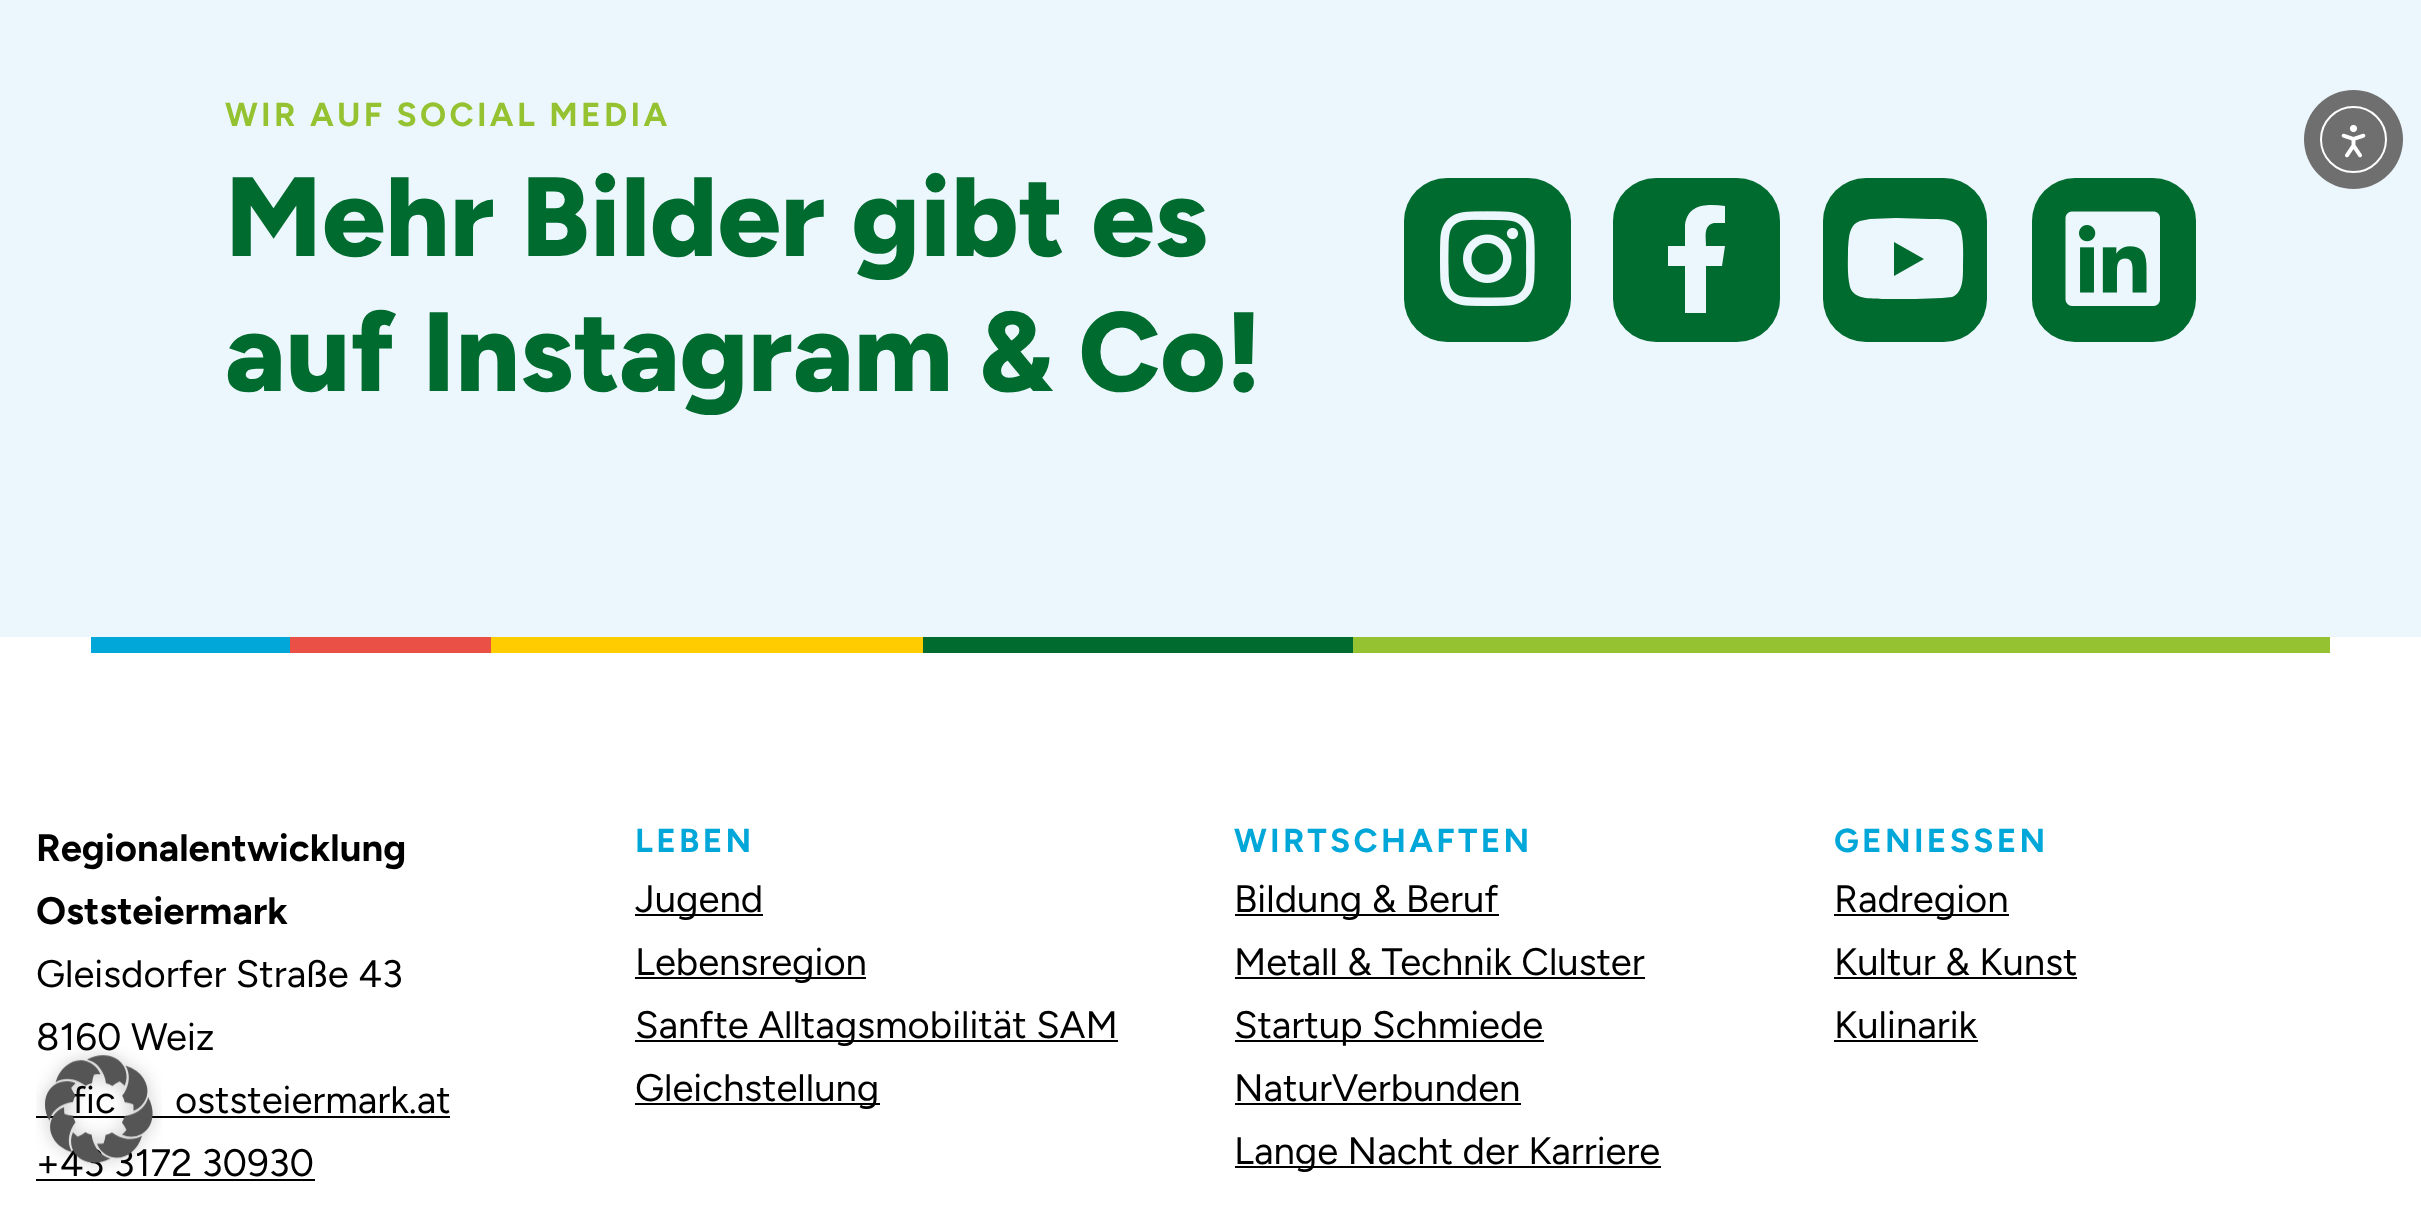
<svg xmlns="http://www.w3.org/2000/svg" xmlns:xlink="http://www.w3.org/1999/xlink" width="2421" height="1208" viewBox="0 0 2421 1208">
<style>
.cls-1{font:bold 33.25px Figtree;letter-spacing:3.3px;fill:#95c230}
.cls-2{font:800 112.5px Figtree;fill:#006b2f}
.cls-3{font:bold 38.25px Figtree;fill:#000000}
.cls-4{font:38.25px Figtree;fill:#000000}
.cls-5{font:bold 33.25px Figtree;letter-spacing:3.3px;fill:#00a7d8}
</style>
<rect width="100%" height="100%" fill="#ffffff"/>
<rect fill="#ecf7fd" x="0" y="0" width="2421" height="637"/>
<rect fill="#006b2f" x="1404" y="178" width="167" height="164" rx="43"/>
<image xlink:href="image0.png" x="1440" y="211" width="95" height="95"/>
<rect fill="#006b2f" x="1613" y="178" width="167" height="164" rx="43"/>
<path fill="#ecf7fd" d="M1722 266H1706V313H1685V266H1668V246H1685V225C1688 203 1708 204 1725 206V223H1714C1703 225 1706 238 1706 246H1725Z"/>
<rect fill="#006b2f" x="1823" y="178" width="164" height="164" rx="43"/>
<path fill="#ecf7fd" d="M1961 231C1964 243 1963 256 1963 268C1963 278 1963 293 1952 297L1942 298L1915 299H1882C1871 298 1854 300 1850 287C1847 275 1848 262 1848 250C1849 240 1848 225 1860 221L1870 219L1896 218L1930 219C1941 219 1957 218 1961 231ZM1894 276L1924 259L1894 242Z"/>
<rect fill="#006b2f" x="2032" y="178" width="164" height="164" rx="43"/>
<image xlink:href="image1.png" x="2065" y="211" width="95" height="95"/>
<rect fill="#00a7d8" x="91" y="637" width="199" height="16"/>
<rect fill="#ea5045" x="290" y="637" width="201" height="16"/>
<rect fill="#ffcc00" x="491" y="637" width="432" height="16"/>
<rect fill="#006b2f" x="923" y="637" width="430" height="16"/>
<rect fill="#95c230" x="1353" y="637" width="977" height="16"/>
<rect fill="#000000" x="36" y="1116" width="414" height="2"/>
<rect fill="#000000" x="36" y="1179" width="279" height="2"/>
<rect fill="#000000" x="635" y="914" width="128" height="2"/>
<rect fill="#000000" x="635" y="977" width="231" height="2"/>
<rect fill="#000000" x="635" y="1040" width="483" height="2"/>
<rect fill="#000000" x="635" y="1103" width="245" height="2"/>
<rect fill="#000000" x="1235" y="914" width="264" height="2"/>
<rect fill="#000000" x="1235" y="977" width="410" height="2"/>
<rect fill="#000000" x="1235" y="1040" width="309" height="2"/>
<rect fill="#000000" x="1235" y="1103" width="286" height="2"/>
<rect fill="#000000" x="1235" y="1166" width="426" height="2"/>
<rect fill="#000000" x="1834" y="914" width="175" height="2"/>
<rect fill="#000000" x="1834" y="977" width="243" height="2"/>
<rect fill="#000000" x="1834" y="1040" width="144" height="2"/>
<circle fill="#706f6f" cx="2353.5" cy="139.5" r="49.5"/>
<circle fill="none" stroke="#ffffff" stroke-width="2" cx="2353.5" cy="139.5" r="32.5"/>
<image xlink:href="image2.png" x="2341" y="124" width="25" height="34"/>
<text class="cls-1" x="225" y="126">WIR AUF SOCIAL MEDIA</text>
<text class="cls-2"><tspan x="225" y="256">Mehr Bilder gibt es</tspan><tspan x="225" y="391">auf Instagram &amp; Co!</tspan></text>
<text class="cls-3"><tspan x="36" y="861">Regionalentwicklung</tspan><tspan x="36" y="924">Oststeiermark</tspan></text>
<text class="cls-4"><tspan x="36" y="987">Gleisdorfer Straße 43</tspan><tspan x="36" y="1050">8160 Weiz</tspan></text>
<text class="cls-4" x="72" y="1113">fic</text>
<text class="cls-4" x="175" y="1113">oststeiermark.at</text>
<text class="cls-4" x="36" y="1176">+43 3172 30930</text>
<text class="cls-5" x="635" y="852">LEBEN</text>
<text class="cls-4"><tspan x="635" y="912">Jugend</tspan><tspan x="635" y="975">Lebensregion</tspan><tspan x="635" y="1038">Sanfte Alltagsmobilität SAM</tspan><tspan x="635" y="1101">Gleichstellung</tspan></text>
<text class="cls-5" x="1234" y="852">WIRTSCHAFTEN</text>
<text class="cls-4"><tspan x="1234" y="912">Bildung &amp; Beruf</tspan><tspan x="1234" y="975">Metall &amp; Technik Cluster</tspan><tspan x="1234" y="1038">Startup Schmiede</tspan><tspan x="1234" y="1101">NaturVerbunden</tspan><tspan x="1234" y="1164">Lange Nacht der Karriere</tspan></text>
<text class="cls-5" x="1834" y="852">GENIESSEN</text>
<text class="cls-4"><tspan x="1834" y="912">Radregion</tspan><tspan x="1834" y="975">Kultur &amp; Kunst</tspan><tspan x="1834" y="1038">Kulinarik</tspan></text>
<image xlink:href="image3.png" x="36" y="1046" width="126" height="126"/>
</svg>
